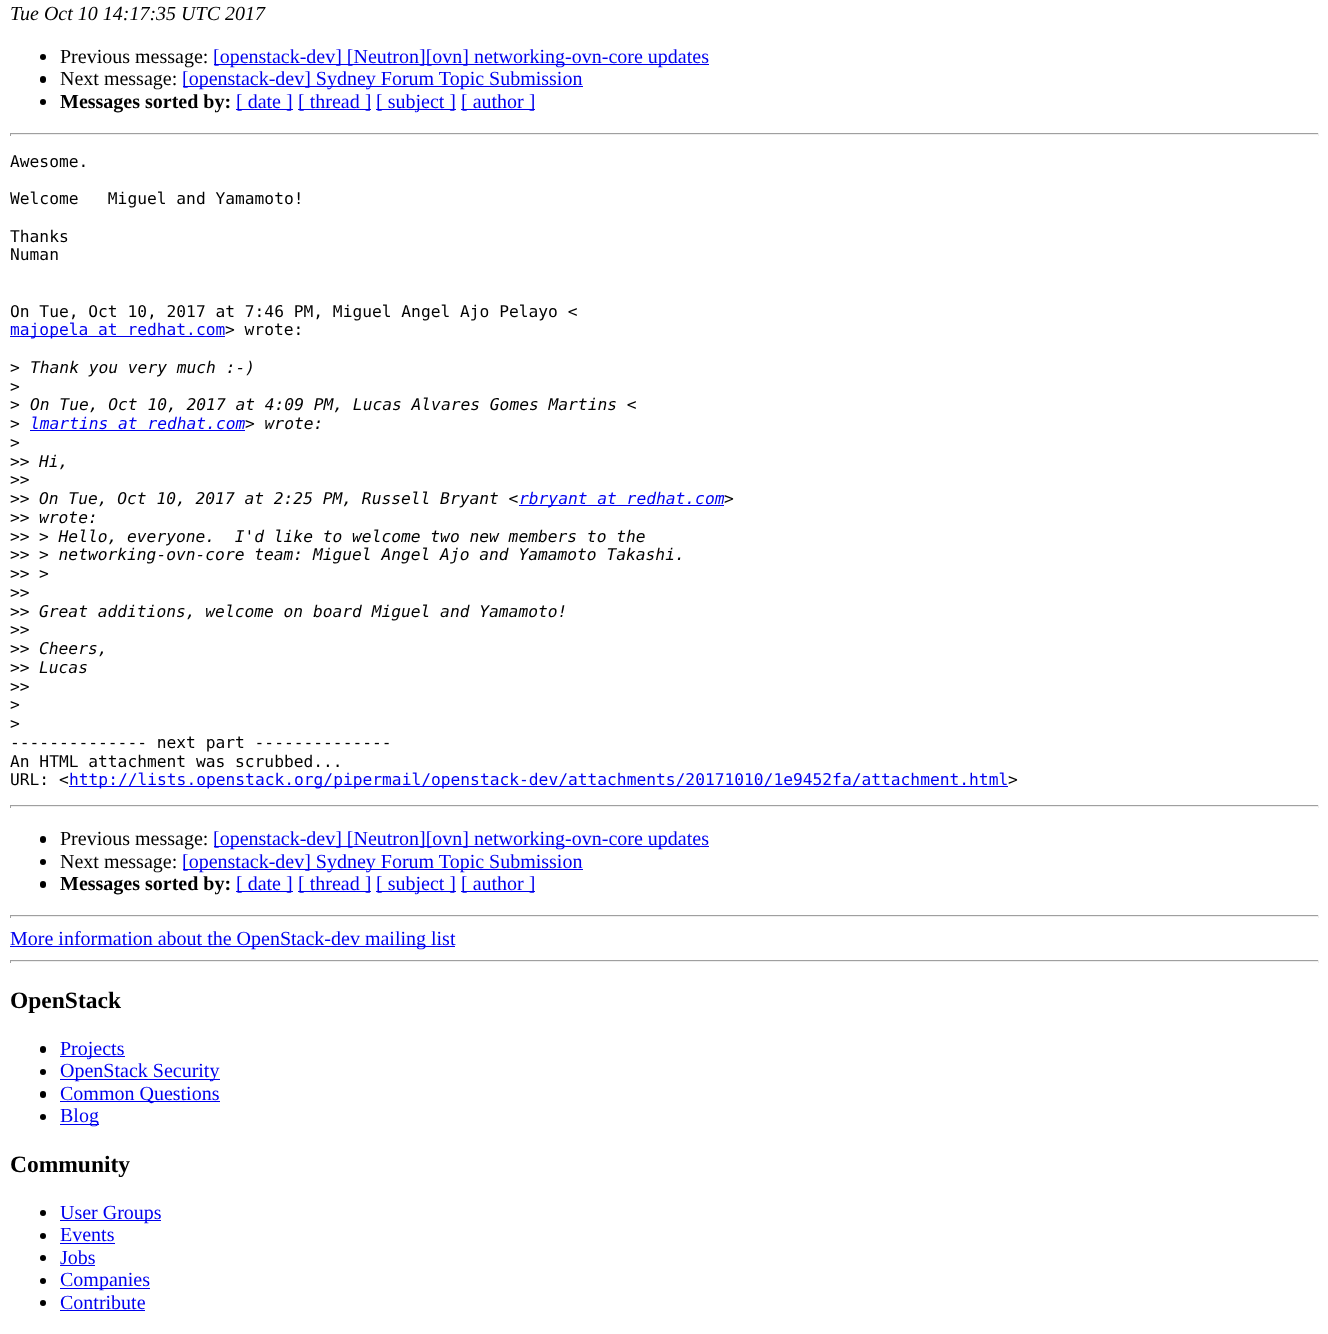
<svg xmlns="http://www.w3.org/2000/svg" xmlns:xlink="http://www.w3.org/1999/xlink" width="1328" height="1334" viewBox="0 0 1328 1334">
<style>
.cls-1{font:italic 20px Liberation Serif;fill:#000000}
.cls-2{font:20px Liberation Serif;fill:#000000}
.cls-3{font:20px Liberation Serif;fill:#0000ee}
.cls-4{font:bold 20px Liberation Serif;fill:#000000}
.cls-5{font:16.25px DejaVu Sans Mono;fill:#000000}
.cls-6{font:16.25px DejaVu Sans Mono;fill:#0000ee}
.cls-7{font:italic 16.25px DejaVu Sans Mono;fill:#000000}
.cls-8{font:italic 16.25px DejaVu Sans Mono;fill:#0000ee}
.cls-9{font:bold 23.5px Liberation Serif;fill:#000000}
</style>
<rect width="100%" height="100%" fill="#ffffff"/>
<circle fill="#000000" cx="43" cy="57" r="3"/>
<rect fill="#0000ee" x="214" y="64" width="495" height="1"/>
<rect fill="#000000" x="40" y="76" width="6" height="7" rx="3"/>
<rect fill="#0000ee" x="183" y="86" width="400" height="1"/>
<circle fill="#000000" cx="43" cy="102" r="3"/>
<rect fill="#0000ee" x="236" y="109" width="57" height="1"/>
<rect fill="#0000ee" x="298" y="109" width="73" height="1"/>
<rect fill="#0000ee" x="376" y="109" width="80" height="1"/>
<rect fill="#0000ee" x="461" y="109" width="74" height="1"/>
<rect fill="#9f9f9f" x="10" y="133" width="1309" height="1"/>
<rect fill="#eeeeee" x="1318" y="133" width="1" height="3"/>
<rect fill="#eeeeee" x="10" y="134" width="1309" height="1"/>
<rect fill="#9f9f9f" x="10" y="133" width="1" height="3"/>
<rect fill="#0000ee" x="10" y="336" width="215" height="1"/>
<rect fill="#0000ee" x="30" y="430" width="215" height="1"/>
<rect fill="#0000ee" x="519" y="505" width="205" height="1"/>
<rect fill="#0000ee" x="69" y="786" width="939" height="1"/>
<rect fill="#9f9f9f" x="10" y="805" width="1309" height="1"/>
<rect fill="#eeeeee" x="1318" y="805" width="1" height="3"/>
<rect fill="#eeeeee" x="10" y="806" width="1309" height="1"/>
<rect fill="#9f9f9f" x="10" y="805" width="1" height="3"/>
<rect fill="#000000" x="40" y="836" width="6" height="7" rx="3"/>
<rect fill="#0000ee" x="214" y="846" width="495" height="1"/>
<circle fill="#000000" cx="43" cy="862" r="3"/>
<rect fill="#0000ee" x="183" y="869" width="400" height="1"/>
<rect fill="#000000" x="40" y="881" width="6" height="7" rx="3"/>
<rect fill="#0000ee" x="236" y="891" width="57" height="1"/>
<rect fill="#0000ee" x="298" y="891" width="73" height="1"/>
<rect fill="#0000ee" x="376" y="891" width="80" height="1"/>
<rect fill="#0000ee" x="461" y="891" width="74" height="1"/>
<rect fill="#9f9f9f" x="10" y="915" width="1309" height="1"/>
<rect fill="#eeeeee" x="1318" y="915" width="1" height="3"/>
<rect fill="#eeeeee" x="10" y="916" width="1309" height="1"/>
<rect fill="#9f9f9f" x="10" y="915" width="1" height="3"/>
<rect fill="#0000ee" x="10" y="946" width="445" height="1"/>
<rect fill="#9f9f9f" x="10" y="960" width="1309" height="1"/>
<rect fill="#eeeeee" x="1318" y="960" width="1" height="3"/>
<rect fill="#eeeeee" x="10" y="961" width="1309" height="1"/>
<rect fill="#9f9f9f" x="10" y="960" width="1" height="3"/>
<rect fill="#000000" x="40" y="1046" width="6" height="7" rx="3"/>
<rect fill="#0000ee" x="60" y="1056" width="65" height="1"/>
<circle fill="#000000" cx="43" cy="1072" r="3"/>
<rect fill="#0000ee" x="60" y="1079" width="160" height="1"/>
<rect fill="#000000" x="40" y="1091" width="6" height="7" rx="3"/>
<rect fill="#0000ee" x="60" y="1101" width="160" height="1"/>
<circle fill="#000000" cx="43" cy="1117" r="3"/>
<rect fill="#0000ee" x="60" y="1124" width="39" height="1"/>
<circle fill="#000000" cx="43" cy="1213" r="3"/>
<rect fill="#0000ee" x="60" y="1220" width="101" height="1"/>
<circle fill="#000000" cx="43" cy="1236" r="3"/>
<rect fill="#0000ee" x="60" y="1243" width="55" height="1"/>
<circle fill="#000000" cx="43" cy="1258" r="3"/>
<rect fill="#0000ee" x="60" y="1265" width="35" height="1"/>
<circle fill="#000000" cx="43" cy="1281" r="3"/>
<rect fill="#0000ee" x="60" y="1288" width="90" height="1"/>
<circle fill="#000000" cx="43" cy="1303" r="3"/>
<rect fill="#0000ee" x="60" y="1310" width="85" height="1"/>
<text class="cls-1" x="10" y="20">Tue Oct 10 14:17:35 UTC 2017</text>
<text class="cls-2" x="60" y="63">Previous message:</text>
<text class="cls-3" x="213" y="63">[openstack-dev] [Neutron][ovn] networking-ovn-core updates</text>
<text class="cls-2" x="60" y="85">Next message:</text>
<text class="cls-3" x="182" y="85">[openstack-dev] Sydney Forum Topic Submission</text>
<text class="cls-4" x="60" y="108">Messages sorted by:</text>
<text class="cls-3" x="236" y="108">[ date ]</text>
<text class="cls-3" x="298" y="108">[ thread ]</text>
<text class="cls-3" x="376" y="108">[ subject ]</text>
<text class="cls-3" x="461" y="108">[ author ]</text>
<text class="cls-5" x="10" y="167">Awesome.</text>
<text class="cls-5" xml:space="preserve" x="10" y="204">Welcome   Miguel and Yamamoto!</text>
<text class="cls-5"><tspan x="10" y="242">Thanks</tspan><tspan x="10" y="260">Numan</tspan></text>
<text class="cls-5" x="10" y="317">On Tue, Oct 10, 2017 at 7:46 PM, Miguel Angel Ajo Pelayo &lt;</text>
<text class="cls-6" x="10" y="335">majopela at redhat.com</text>
<text class="cls-5" x="225" y="335">&gt; wrote:</text>
<text class="cls-5" x="10" y="373">&gt;</text>
<text class="cls-7" x="30" y="373">Thank you very much :-)</text>
<text class="cls-5"><tspan x="10" y="392">&gt;</tspan><tspan x="10" y="410">&gt;</tspan></text>
<text class="cls-7" x="30" y="410">On Tue, Oct 10, 2017 at 4:09 PM, Lucas Alvares Gomes Martins &lt;</text>
<text class="cls-5" x="10" y="429">&gt;</text>
<text class="cls-8" x="30" y="429">lmartins at redhat.com</text>
<text class="cls-7" x="245" y="429">&gt; wrote:</text>
<text class="cls-5"><tspan x="10" y="448">&gt;</tspan><tspan x="10" y="467">&gt;&gt;</tspan></text>
<text class="cls-7" x="39" y="467">Hi,</text>
<text class="cls-5"><tspan x="10" y="485">&gt;&gt;</tspan><tspan x="10" y="504">&gt;&gt;</tspan></text>
<text class="cls-7" x="39" y="504">On Tue, Oct 10, 2017 at 2:25 PM, Russell Bryant &lt;</text>
<text class="cls-8" x="519" y="504">rbryant at redhat.com</text>
<text class="cls-7" x="724" y="504">&gt;</text>
<text class="cls-5" x="10" y="523">&gt;&gt;</text>
<text class="cls-7" x="39" y="523">wrote:</text>
<text class="cls-5" x="10" y="542">&gt;&gt;</text>
<text class="cls-7" xml:space="preserve" x="39" y="542">&gt; Hello, everyone.  I'd like to welcome two new members to the</text>
<text class="cls-5" x="10" y="560">&gt;&gt;</text>
<text class="cls-7" x="39" y="560">&gt; networking-ovn-core team: Miguel Angel Ajo and Yamamoto Takashi.</text>
<text class="cls-5" x="10" y="579">&gt;&gt;</text>
<text class="cls-7" x="39" y="579">&gt;</text>
<text class="cls-5"><tspan x="10" y="598">&gt;&gt;</tspan><tspan x="10" y="617">&gt;&gt;</tspan></text>
<text class="cls-7" x="39" y="617">Great additions, welcome on board Miguel and Yamamoto!</text>
<text class="cls-5"><tspan x="10" y="635">&gt;&gt;</tspan><tspan x="10" y="654">&gt;&gt;</tspan></text>
<text class="cls-7" x="39" y="654">Cheers,</text>
<text class="cls-5" x="10" y="673">&gt;&gt;</text>
<text class="cls-7" x="39" y="673">Lucas</text>
<text class="cls-5"><tspan x="10" y="692">&gt;&gt;</tspan><tspan x="10" y="710">&gt;</tspan><tspan x="10" y="729">&gt;</tspan><tspan x="10" y="748">-------------- next part --------------</tspan><tspan x="10" y="767">An HTML attachment was scrubbed...</tspan><tspan x="10" y="785">URL: &lt;</tspan></text>
<text class="cls-6" x="69" y="785">http://lists.openstack.org/pipermail/openstack-dev/attachments/20171010/1e9452fa/attachment.html</text>
<text class="cls-5" x="1008" y="785">&gt;</text>
<text class="cls-2" x="60" y="845">Previous message:</text>
<text class="cls-3" x="213" y="845">[openstack-dev] [Neutron][ovn] networking-ovn-core updates</text>
<text class="cls-2" x="60" y="868">Next message:</text>
<text class="cls-3" x="182" y="868">[openstack-dev] Sydney Forum Topic Submission</text>
<text class="cls-4" x="60" y="890">Messages sorted by:</text>
<text class="cls-3" x="236" y="890">[ date ]</text>
<text class="cls-3" x="298" y="890">[ thread ]</text>
<text class="cls-3" x="376" y="890">[ subject ]</text>
<text class="cls-3" x="461" y="890">[ author ]</text>
<text class="cls-3" x="10" y="945">More information about the OpenStack-dev mailing list</text>
<text class="cls-9" x="10" y="1008">OpenStack</text>
<text class="cls-3"><tspan x="60" y="1055">Projects</tspan><tspan x="60" y="1077">OpenStack Security</tspan><tspan x="60" y="1100">Common Questions</tspan><tspan x="60" y="1122">Blog</tspan></text>
<text class="cls-9" x="10" y="1172">Community</text>
<text class="cls-3"><tspan x="60" y="1219">User Groups</tspan><tspan x="60" y="1241">Events</tspan><tspan x="60" y="1264">Jobs</tspan><tspan x="60" y="1286">Companies</tspan><tspan x="60" y="1309">Contribute</tspan></text>
</svg>
